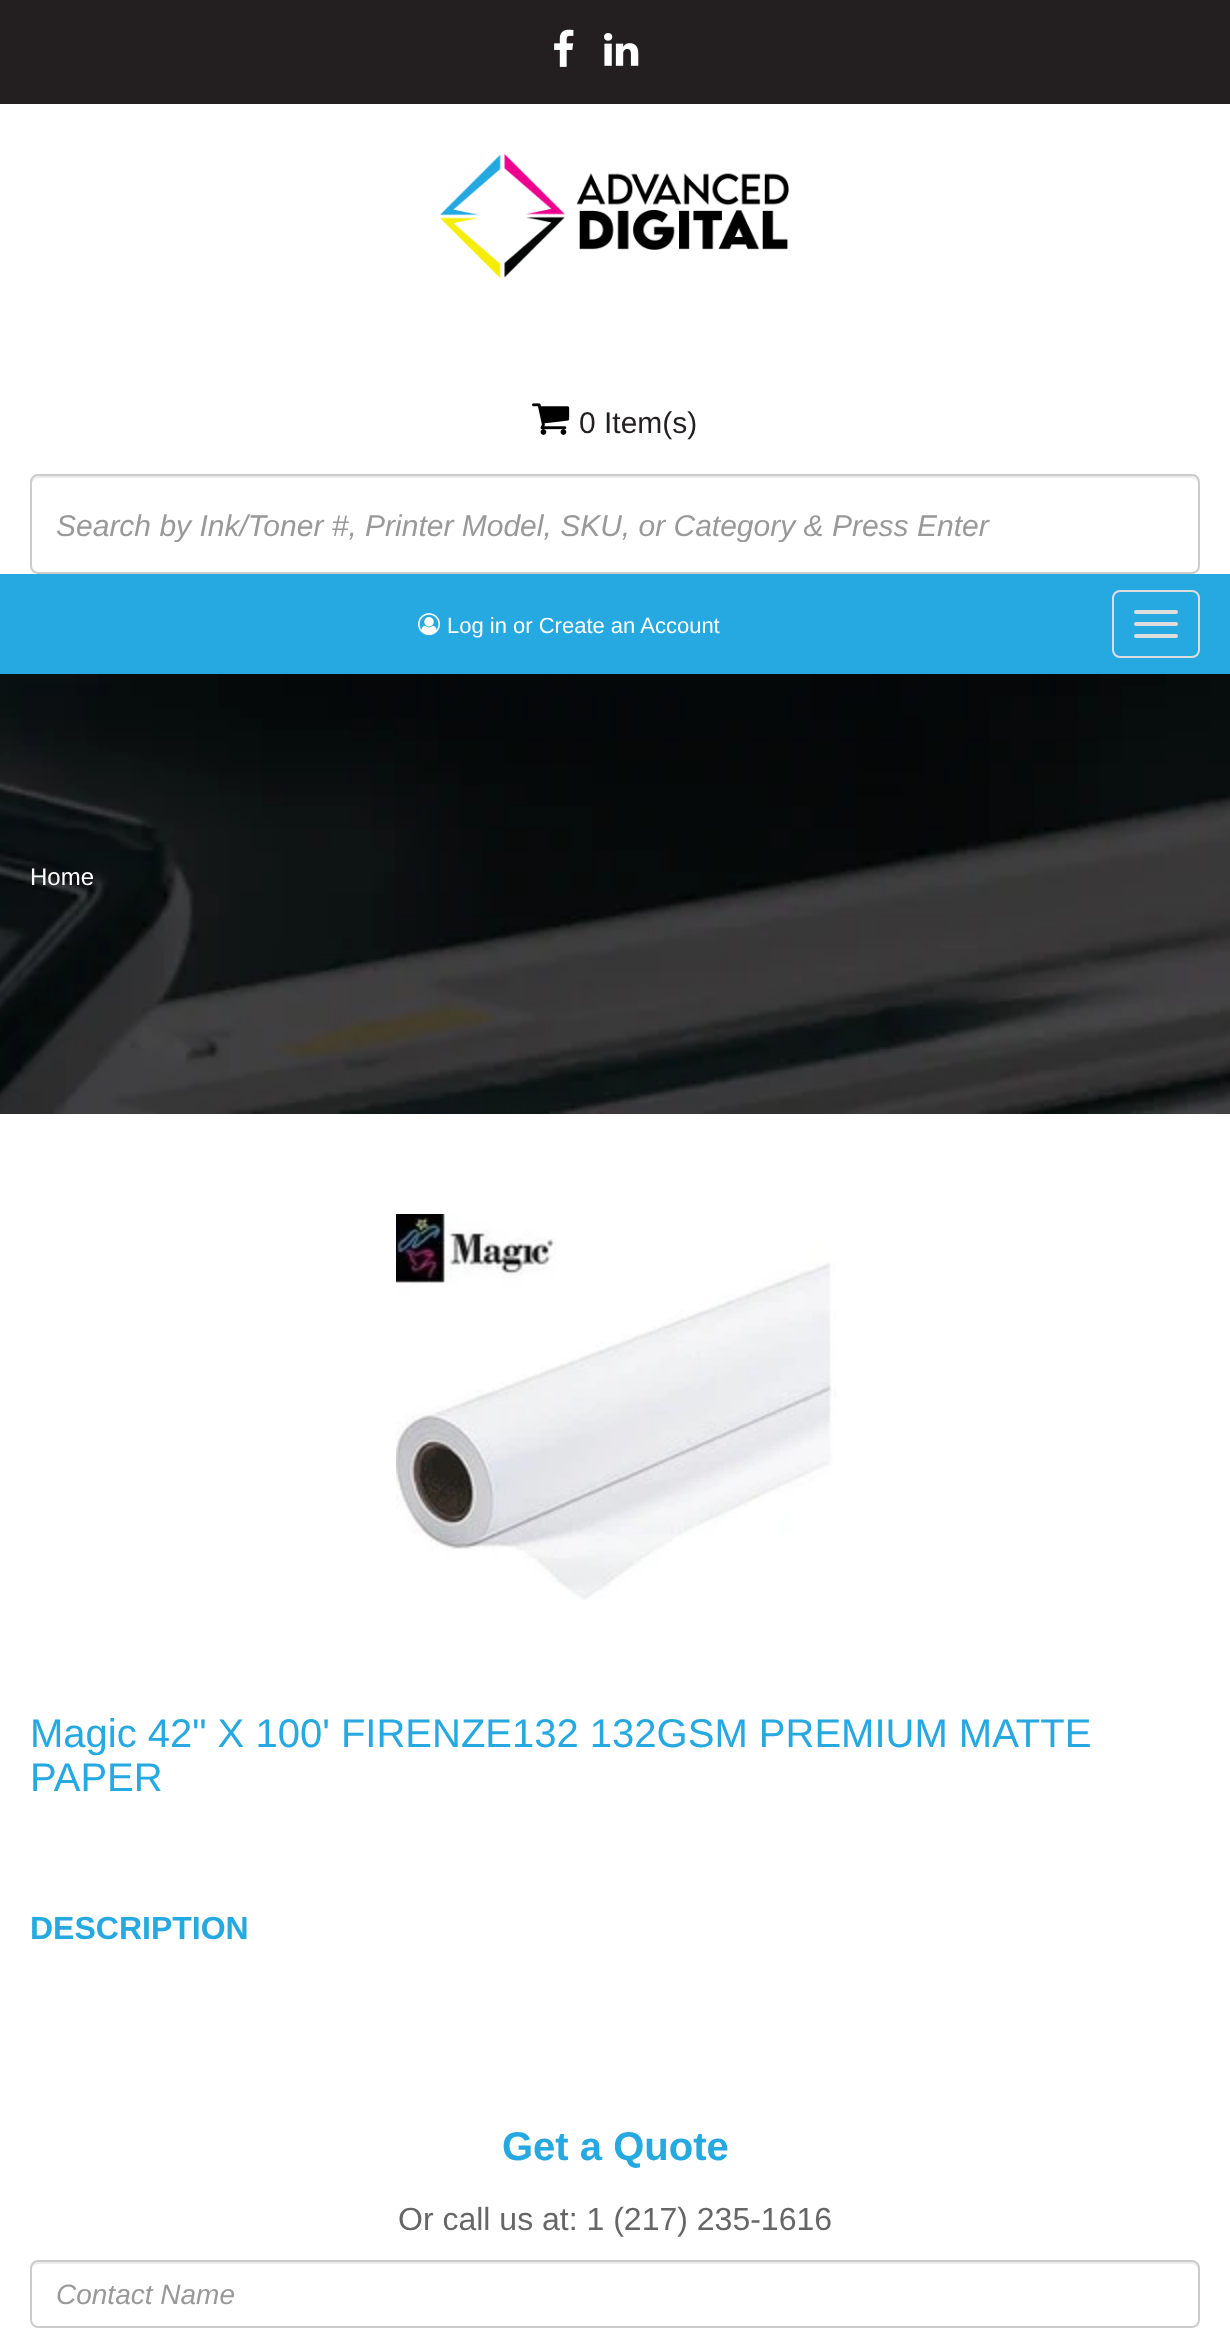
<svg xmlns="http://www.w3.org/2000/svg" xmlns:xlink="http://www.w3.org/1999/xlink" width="1230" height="2340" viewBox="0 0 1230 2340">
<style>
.cls-1{font:30px Liberation Sans;fill:#231f20}
.cls-2{font:italic 30px Liberation Sans;fill:#999999}
.cls-3{font:22px Liberation Sans;fill:#ffffff}
.cls-4{font:24px Liberation Sans;fill:#ffffff}
.cls-5{font:40px Liberation Sans;fill:#26a8e0}
.cls-6{font:bold 32px Liberation Sans;fill:#26a8e0}
.cls-7{font:bold 40px Liberation Sans;fill:#26a8e0}
.cls-8{font:32px Liberation Sans;fill:#666666}
.cls-9{font:italic 28px Liberation Sans;fill:#999999}
</style>
<defs>
<clipPath id="clip1"><rect x="56" y="508" width="1110" height="34"/></clipPath>
</defs>
<rect width="100%" height="100%" fill="#ffffff"/>
<rect fill="#231f20" x="0" y="0" width="1230" height="104"/>
<image xlink:href="image0.png" x="554" y="29" width="20" height="38"/>
<image xlink:href="image1.png" x="604" y="33" width="35" height="33"/>
<image xlink:href="image2.png" x="440" y="154" width="350" height="124"/>
<image xlink:href="image3.png" x="532" y="403" width="38" height="32"/>
<path fill="#ececec" d="M38 478H1192C1195 478 1198 481 1198 484V482C1198 479 1195 476 1192 476H38C35 476 32 479 32 482V484C32 481 35 478 38 478Z"/>
<rect fill="none" stroke="#cccccc" stroke-width="2" x="31" y="475" width="1168" height="98" rx="7"/>
<rect fill="#26a8e0" x="0" y="574" width="1230" height="100"/>
<image xlink:href="image4.png" x="418" y="613" width="22" height="23"/>
<rect fill="none" stroke="#dddddd" stroke-width="2" x="1113" y="591" width="86" height="66" rx="7"/>
<rect fill="#dddddd" x="1134" y="610" width="44" height="4" rx="2"/>
<rect fill="#dddddd" x="1134" y="622" width="44" height="4" rx="2"/>
<rect fill="#dddddd" x="1134" y="634" width="44" height="4" rx="2"/>
<image xlink:href="image5.png" x="0" y="674" width="1230" height="440"/>
<image xlink:href="image6.png" x="396" y="1214" width="440" height="386"/>
<path fill="#ececec" d="M38 2264H1192C1195 2264 1198 2267 1198 2270V2268C1198 2265 1195 2262 1192 2262H38C35 2262 32 2265 32 2268V2270C32 2267 35 2264 38 2264Z"/>
<rect fill="none" stroke="#cccccc" stroke-width="2" x="31" y="2261" width="1168" height="66" rx="7"/>
<text class="cls-1" x="579" y="433">0 Item(s)</text>
<g clip-path="url(#clip1)">
<text class="cls-2" x="56" y="536">Search by Ink/Toner #, Printer Model, SKU, or Category &amp; Press Enter</text>
</g>
<text class="cls-3" x="447" y="633">Log in or Create an Account</text>
<text class="cls-4" x="30" y="885">Home</text>
<text class="cls-5"><tspan x="30" y="1747">Magic 42" X 100' FIRENZE132 132GSM PREMIUM MATTE</tspan><tspan x="30" y="1791">PAPER</tspan></text>
<text class="cls-6" x="30" y="1939">DESCRIPTION</text>
<text class="cls-7" x="502" y="2160">Get a Quote</text>
<text class="cls-8" x="398" y="2230">Or call us at: 1 (217) 235-1616</text>
<text class="cls-9" x="56" y="2304">Contact Name</text>
</svg>
